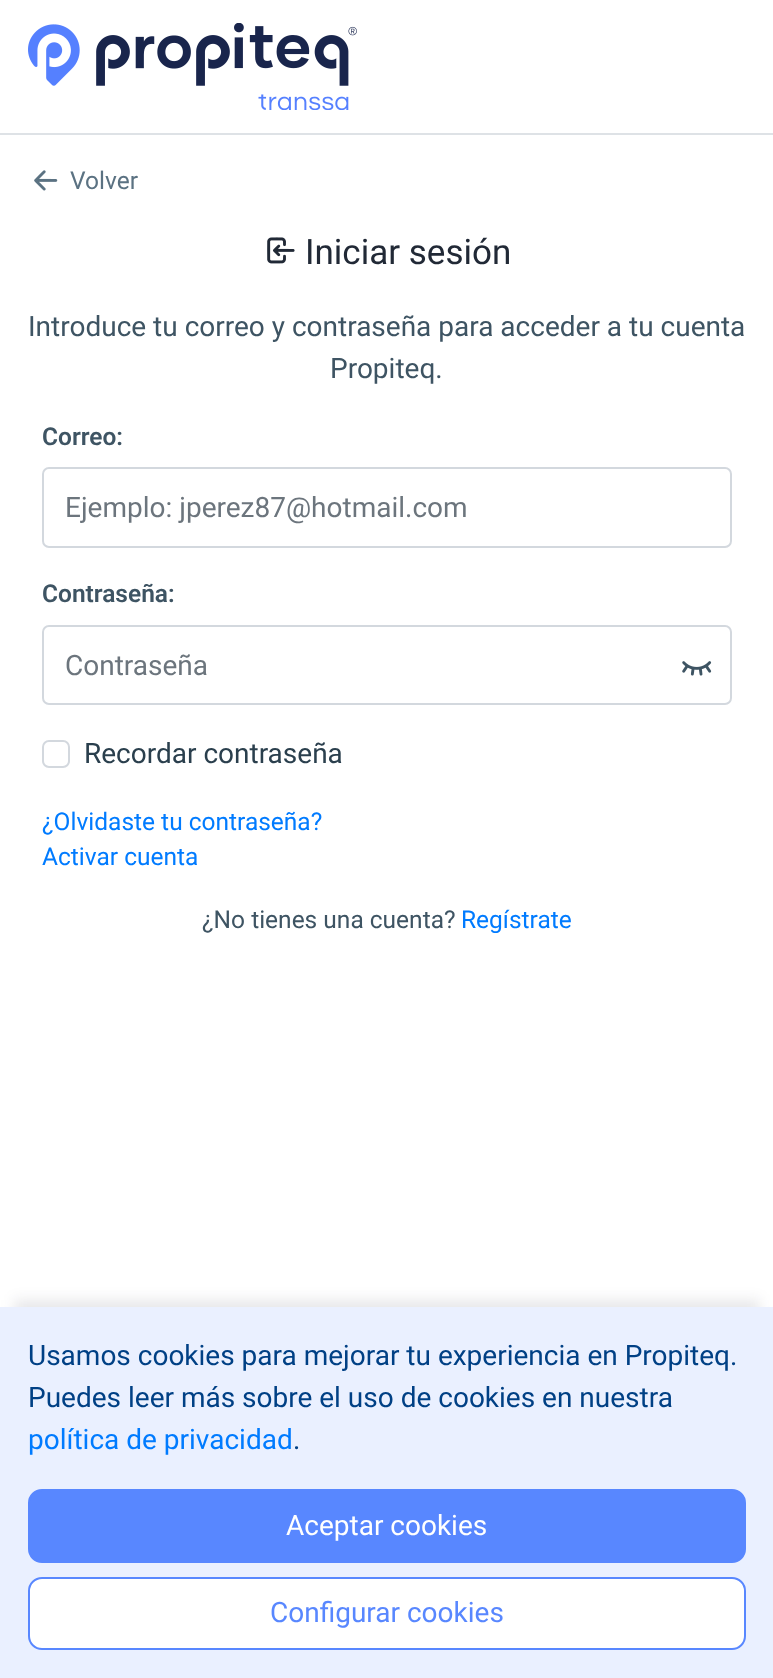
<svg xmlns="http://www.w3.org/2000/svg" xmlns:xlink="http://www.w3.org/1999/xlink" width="773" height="1678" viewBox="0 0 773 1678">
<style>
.cls-1{font:24.5px Roboto;fill:#5b7282}
.cls-2{font:35px Roboto;fill:#212936}
.cls-3{font:28px Roboto;fill:#3e5463}
.cls-4{font:600 24.5px Roboto;fill:#3e5463}
.cls-5{font:28px Roboto;fill:#6c757d}
.cls-6{font:28px Roboto;fill:#2a3f4d}
.cls-7{font:24.5px Roboto;fill:#007bff}
.cls-8{font:24.5px Roboto;fill:#3e5463}
.cls-9{font:28px Roboto;fill:#004085}
.cls-10{font:28px Roboto;fill:#007bff}
.cls-11{font:28px Roboto;fill:#ffffff}
.cls-12{font:28px Roboto;fill:#5887ff}
</style>
<rect width="100%" height="100%" fill="#ffffff"/>
<rect fill="#dee2e6" x="0" y="133" width="773" height="2"/>
<image xlink:href="image0.png" x="28" y="23" width="329" height="87"/>
<image xlink:href="image1.png" x="34" y="170" width="24" height="21"/>
<image xlink:href="image2.png" x="267" y="237" width="28" height="27"/>
<rect fill="none" stroke="#d3d8de" stroke-width="2" x="43" y="468" width="688" height="79" rx="6"/>
<rect fill="none" stroke="#d3d8de" stroke-width="2" x="43" y="626" width="688" height="78" rx="6"/>
<image xlink:href="image3.png" x="682" y="661" width="30" height="15"/>
<rect fill="none" stroke="#d3d8de" stroke-width="2" x="43" y="741" width="26" height="26" rx="6"/>
<rect fill="#101828" fill-opacity="0.1" filter="blur(7px)" x="14" y="1300" width="746" height="343"/>
<rect fill="#eaf0ff" x="0" y="1307" width="773" height="371"/>
<rect fill="#5887ff" stroke="#5887ff" stroke-width="2" x="29" y="1490" width="716" height="72" rx="13"/>
<rect fill="#ffffff" stroke="#5887ff" stroke-width="2" x="29" y="1578" width="716" height="71" rx="13"/>
<text class="cls-1" x="70" y="189">Volver</text>
<text class="cls-2" x="305" y="264">Iniciar sesión</text>
<text class="cls-3" x="28" y="336">Introduce tu correo y contraseña para acceder a tu cuenta</text>
<text class="cls-3" x="330" y="378">Propiteq.</text>
<text class="cls-4" x="42" y="445">Correo:</text>
<text class="cls-5" x="65" y="517">Ejemplo: jperez87@hotmail.com</text>
<text class="cls-4" x="42" y="602">Contraseña:</text>
<text class="cls-5" x="65" y="675">Contraseña</text>
<text class="cls-6" x="84" y="763">Recordar contraseña</text>
<text class="cls-7"><tspan x="42" y="830">¿Olvidaste tu contraseña?</tspan><tspan x="42" y="865">Activar cuenta</tspan></text>
<text class="cls-8" x="202" y="928">¿No tienes una cuenta?</text>
<text class="cls-7" x="461" y="928">Regístrate</text>
<text class="cls-9"><tspan x="28" y="1365">Usamos cookies para mejorar tu experiencia en Propiteq.</tspan><tspan x="28" y="1407">Puedes leer más sobre el uso de cookies en nuestra</tspan></text>
<text class="cls-10" x="28" y="1449">política de privacidad</text>
<text class="cls-9" x="293" y="1449">.</text>
<text class="cls-11" x="286" y="1535">Aceptar cookies</text>
<text class="cls-12" x="270" y="1622">Configurar cookies</text>
</svg>
